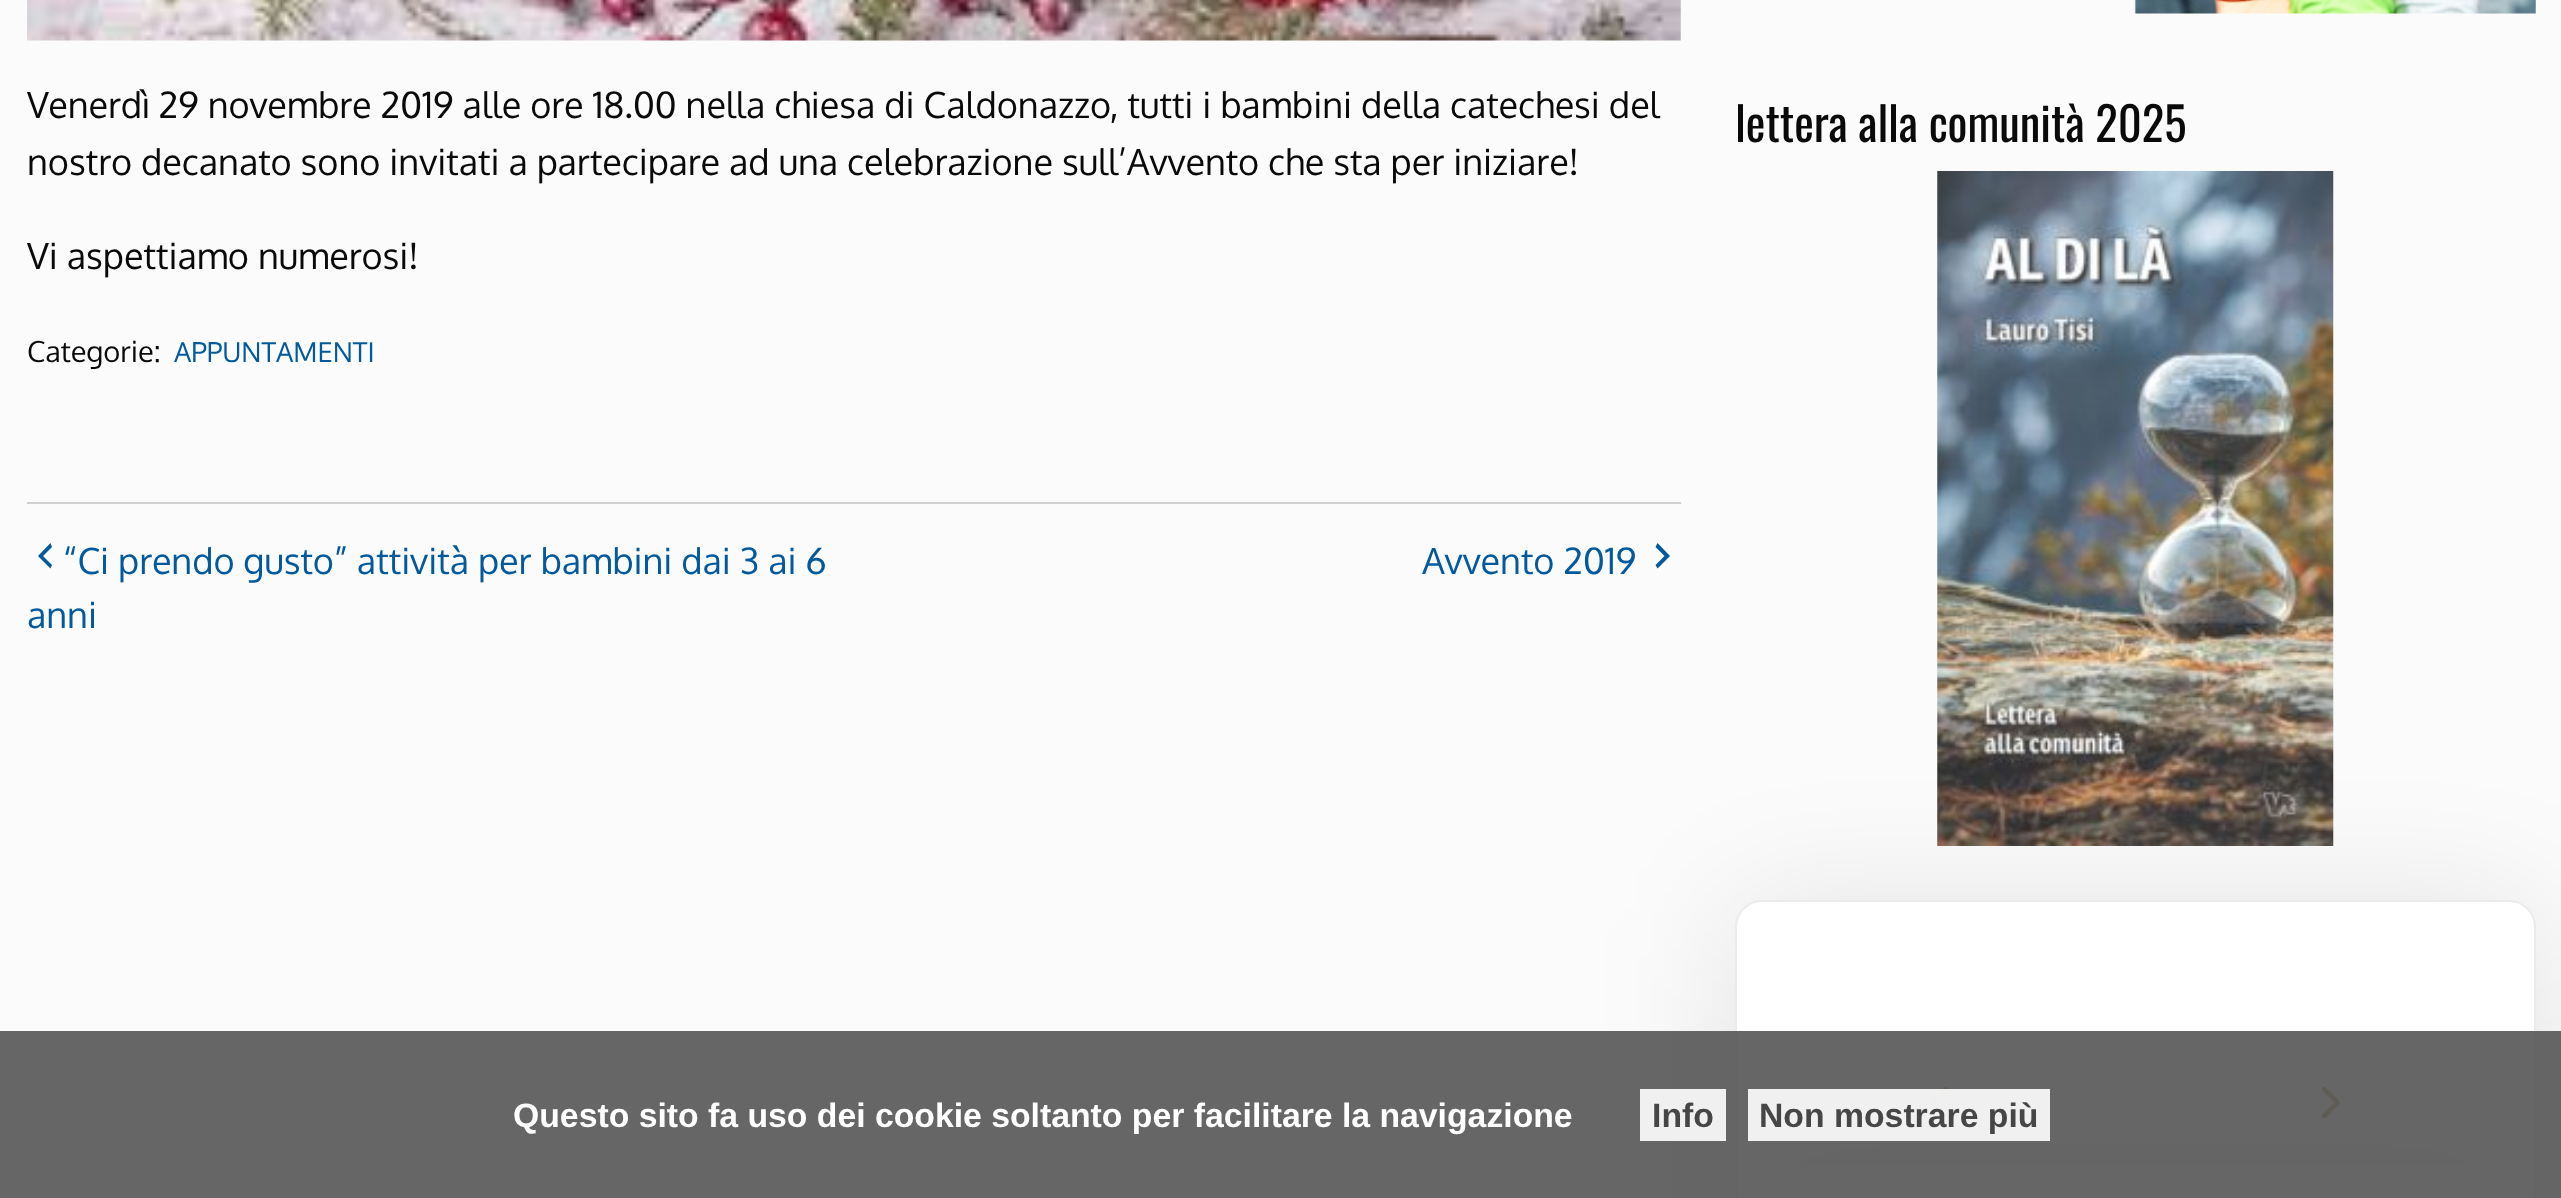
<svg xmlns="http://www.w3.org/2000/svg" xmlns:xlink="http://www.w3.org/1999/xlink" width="2561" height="1198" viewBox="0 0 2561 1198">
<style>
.cls-1{font:36px Oxygen;fill:#0a0a0a}
.cls-2{font:29px Oxygen;fill:#0a0a0a}
.cls-3{font:27.25px Oxygen;fill:#02599d}
.cls-4{font:36px Oxygen;fill:#02599d}
.cls-5{font:46.75px Oswald;fill:#0a0a0a}
.cls-6{font:bold 33.75px Liberation Sans;fill:#ffffff}
.cls-7{font:bold 33.75px Liberation Sans;fill:#464646}
</style>
<defs>
<clipPath id="clip1"><rect x="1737" y="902" width="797" height="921" rx="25"/></clipPath>
</defs>
<rect width="100%" height="100%" fill="#fbfbfb"/>
<image xlink:href="image0.png" x="27" y="0" width="1654" height="41"/>
<rect fill="#d0d0d0" x="27" y="502" width="1654" height="2"/>
<path fill="#02599d" d="M52 547L43 556L52 565L50.5 568.5L38 556L50.5 543Z"/>
<path fill="#02599d" d="M1655.5 565L1664.5 556L1655.5 547L1657.5 543L1670 556L1657.5 568.5Z"/>
<image xlink:href="image1.png" x="2134" y="0" width="402" height="14"/>
<image xlink:href="image2.png" x="1937" y="171" width="397" height="675"/>
<rect fill="#000000" fill-opacity="0.1" filter="blur(67.5px)" x="1735" y="909" width="801" height="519" rx="27"/>
<rect fill="#ffffff" stroke="#ebebeb" stroke-width="2" x="1736" y="901" width="799" height="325" rx="26"/>
<image xlink:href="image3.png" x="1930" y="1086" width="19" height="32"/>
<image xlink:href="image4.png" x="2322" y="1086" width="18" height="32"/>
<g clip-path="url(#clip1)">
<rect fill="#000000" fill-opacity="0.1" filter="blur(67.5px)" x="1748" y="1175" width="774" height="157" rx="27"/>
</g>
<rect fill="#ffffff" x="1748" y="1166" width="774" height="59" rx="27"/>
<rect fill="#555555" fill-opacity="0.9" x="0" y="1031" width="2561" height="167"/>
<rect fill="#f0f0f0" x="1640" y="1089" width="86" height="52"/>
<rect fill="#ffffff" fill-opacity="0.9" x="1748" y="1089" width="302" height="52"/>
<text class="cls-1"><tspan x="27" y="118">Venerdì 29 novembre 2019 alle ore 18.00 nella chiesa di Caldonazzo, tutti i bambini della catechesi del</tspan><tspan x="27" y="175">nostro decanato sono invitati a partecipare ad una celebrazione sull’Avvento che sta per iniziare!</tspan></text>
<text class="cls-1" x="27" y="269">Vi aspettiamo numerosi!</text>
<text class="cls-2" x="27" y="362">Categorie:</text>
<text class="cls-3" x="174" y="362">APPUNTAMENTI</text>
<text class="cls-4" x="63" y="574">“Ci prendo gusto” attività per bambini dai 3 ai 6</text>
<text class="cls-4" x="27" y="628">anni</text>
<text class="cls-4" x="1422" y="574">Avvento 2019</text>
<text class="cls-5" x="1735" y="142">lettera alla comunità 2025</text>
<text class="cls-6" x="513" y="1127">Questo sito fa uso dei cookie soltanto per facilitare la navigazione</text>
<text class="cls-7" x="1652" y="1127">Info</text>
<text class="cls-7" x="1759" y="1127">Non mostrare più</text>
</svg>
